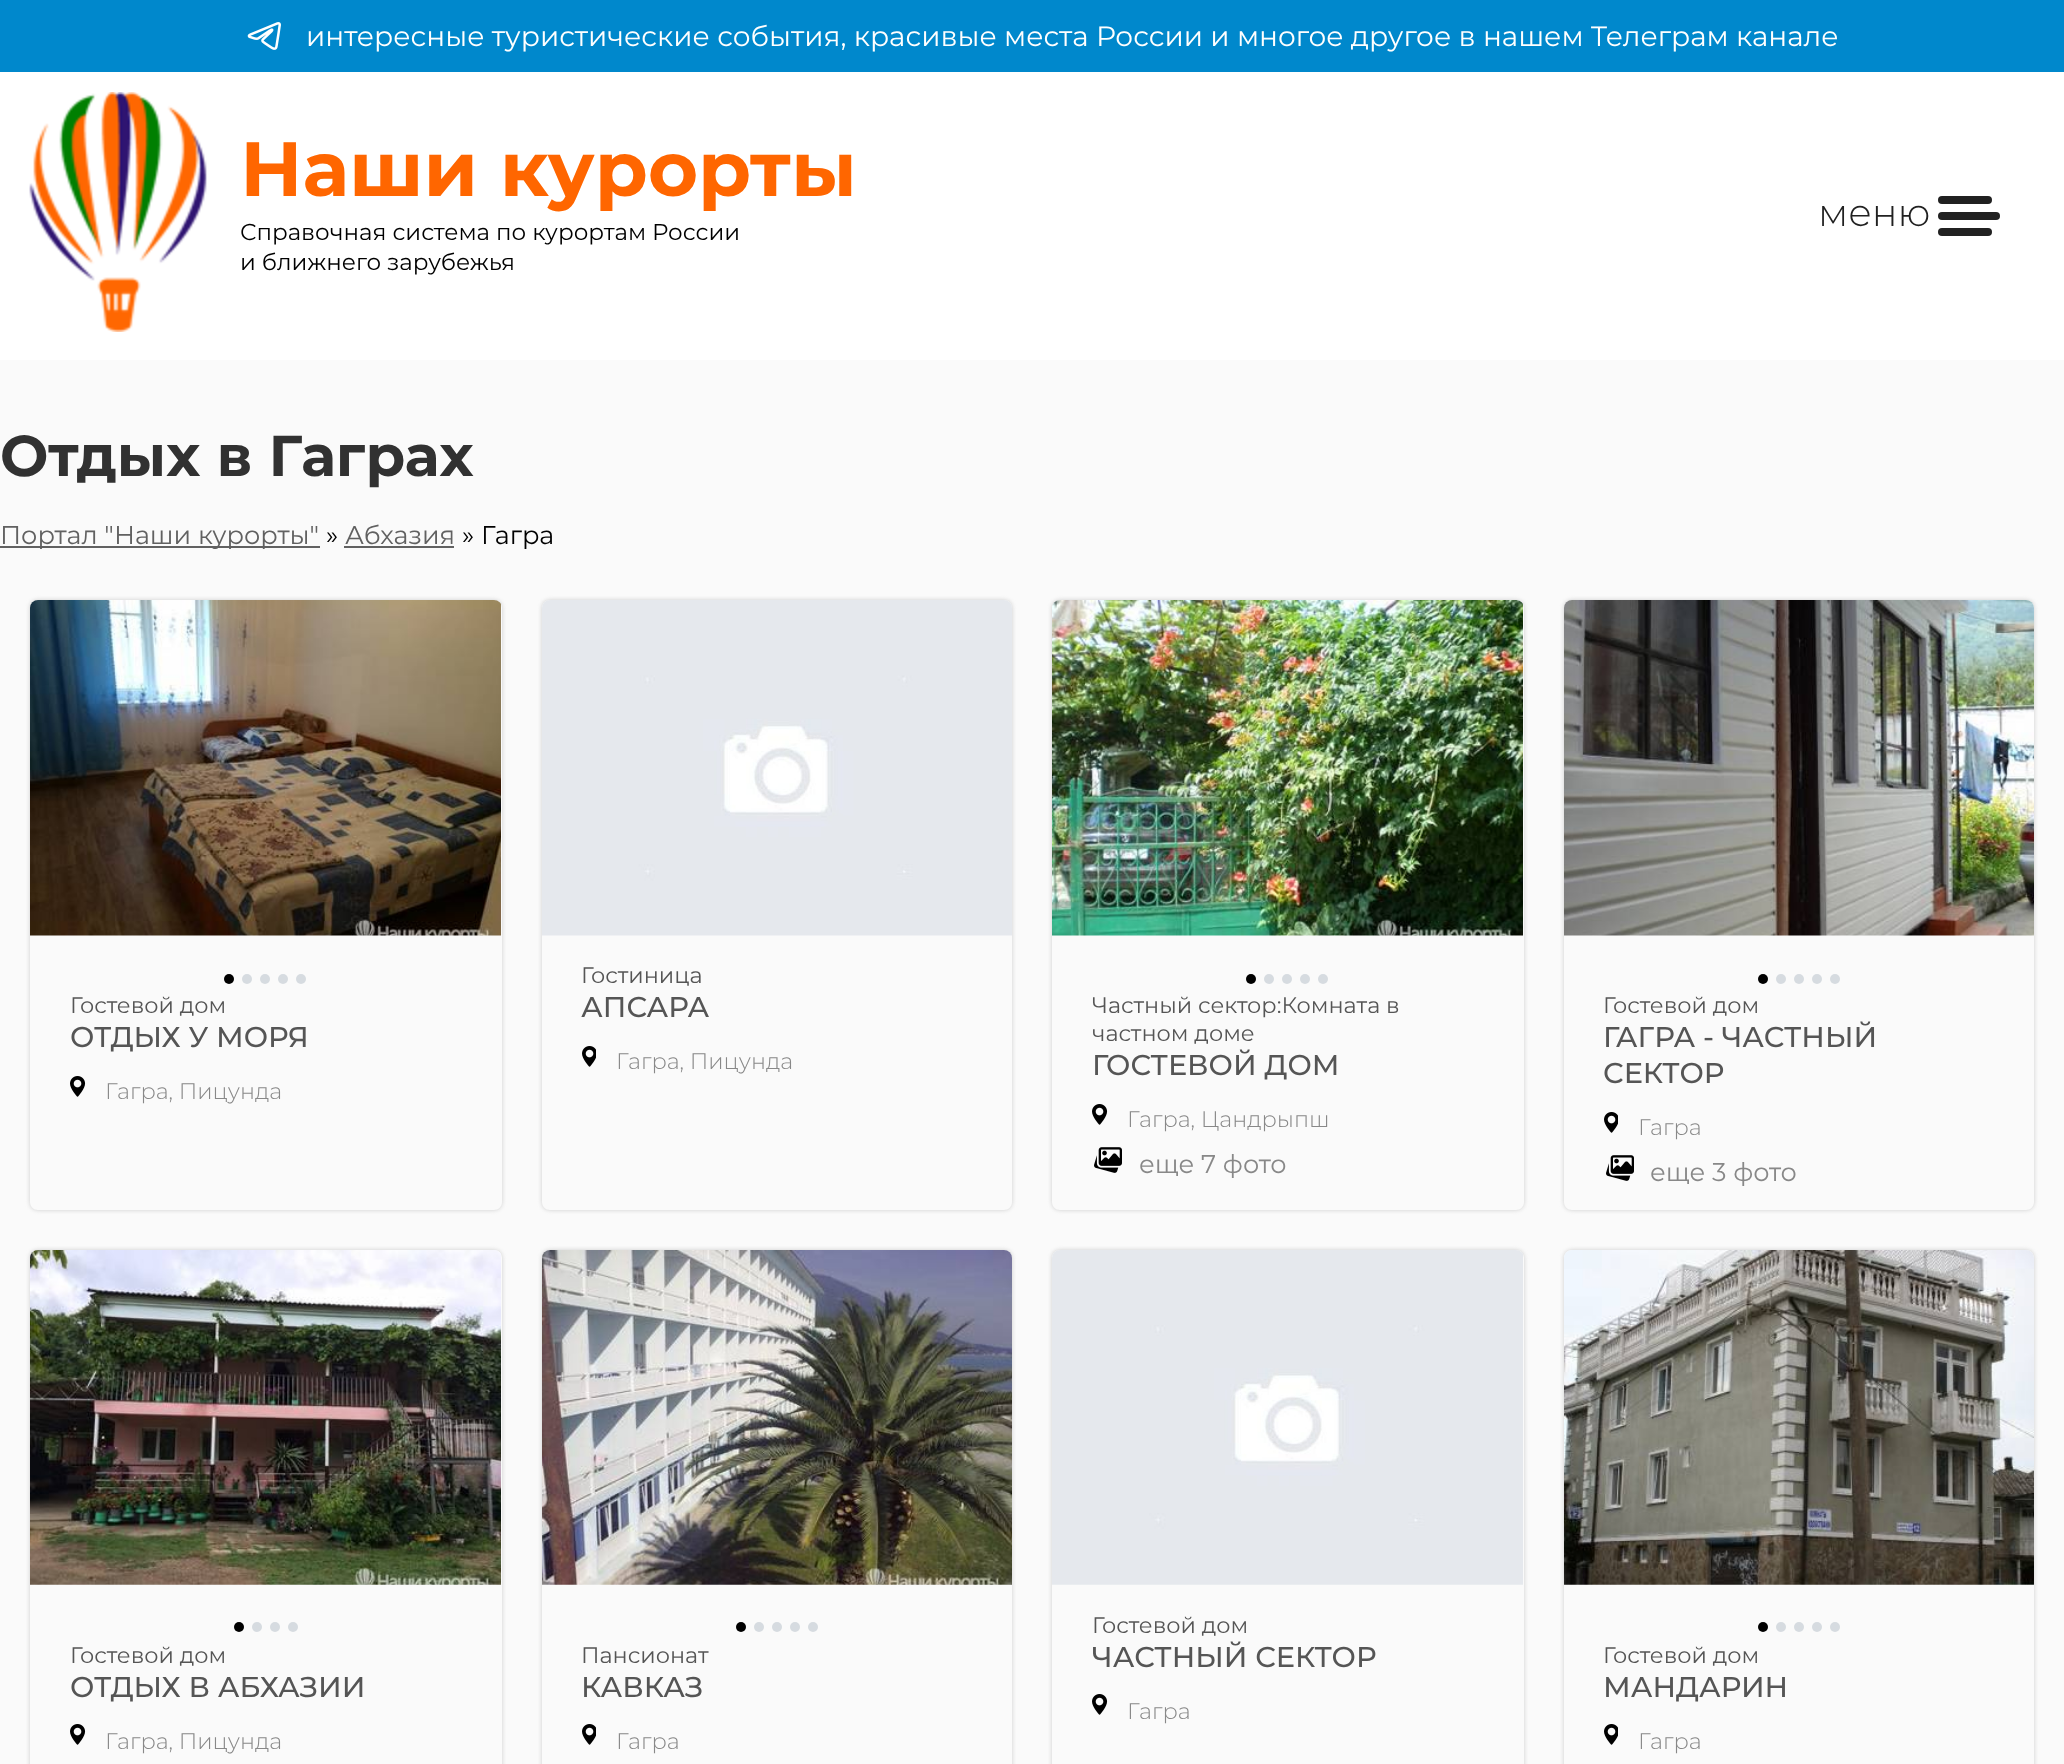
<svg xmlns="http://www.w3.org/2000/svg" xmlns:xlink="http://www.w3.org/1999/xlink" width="2064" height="1764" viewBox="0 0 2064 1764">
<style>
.cls-1{font:28px Montserrat;fill:#ffffff}
.cls-2{font:bold 76.75px Montserrat;fill:#ff6600}
.cls-3{font:23px Montserrat;fill:#000000}
.cls-4{font:300 38.5px Montserrat;fill:#212121}
.cls-5{font:bold 57.5px Montserrat;fill:#313131}
.cls-6{font:25.6px Montserrat;fill:#616161}
.cls-7{font:25.6px Montserrat;fill:#000000}
.cls-8{font:22.4px Montserrat;fill:#555555}
.cls-9{font:500 28.75px Montserrat;fill:#555555}
.cls-10{font:300 22.4px Montserrat;fill:#888888}
.cls-11{font:25.6px Montserrat;fill:#888888}
</style>
<defs>
<clipPath id="clip1"><path d="M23 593H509V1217H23ZM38 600H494C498.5 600 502 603.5 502 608V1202C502 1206.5 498.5 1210 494 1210H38C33.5 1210 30 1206.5 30 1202V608C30 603.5 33.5 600 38 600Z" clip-rule="evenodd"/></clipPath>
<clipPath id="clip2"><path d="M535 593H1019V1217H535ZM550 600H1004C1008.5 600 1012 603.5 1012 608V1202C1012 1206.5 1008.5 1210 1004 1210H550C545.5 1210 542 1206.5 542 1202V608C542 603.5 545.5 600 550 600Z" clip-rule="evenodd"/></clipPath>
<clipPath id="clip3"><path d="M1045 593H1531V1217H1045ZM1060 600H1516C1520.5 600 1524 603.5 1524 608V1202C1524 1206.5 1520.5 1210 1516 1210H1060C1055.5 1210 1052 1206.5 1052 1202V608C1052 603.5 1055.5 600 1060 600Z" clip-rule="evenodd"/></clipPath>
<clipPath id="clip4"><path d="M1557 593H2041V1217H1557ZM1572 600H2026C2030.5 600 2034 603.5 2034 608V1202C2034 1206.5 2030.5 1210 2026 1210H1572C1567.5 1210 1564 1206.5 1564 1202V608C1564 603.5 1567.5 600 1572 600Z" clip-rule="evenodd"/></clipPath>
<clipPath id="clip5"><path d="M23 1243H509V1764H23ZM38 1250H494C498.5 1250 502 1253.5 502 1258V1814C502 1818.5 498.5 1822 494 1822H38C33.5 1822 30 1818.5 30 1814V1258C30 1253.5 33.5 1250 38 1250Z" clip-rule="evenodd"/></clipPath>
<clipPath id="clip6"><path d="M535 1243H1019V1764H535ZM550 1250H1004C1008.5 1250 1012 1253.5 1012 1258V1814C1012 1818.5 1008.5 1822 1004 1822H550C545.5 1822 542 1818.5 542 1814V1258C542 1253.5 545.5 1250 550 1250Z" clip-rule="evenodd"/></clipPath>
<clipPath id="clip7"><path d="M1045 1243H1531V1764H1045ZM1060 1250H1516C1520.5 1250 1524 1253.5 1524 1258V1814C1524 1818.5 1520.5 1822 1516 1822H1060C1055.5 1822 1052 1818.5 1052 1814V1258C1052 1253.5 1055.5 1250 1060 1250Z" clip-rule="evenodd"/></clipPath>
<clipPath id="clip8"><path d="M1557 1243H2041V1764H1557ZM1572 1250H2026C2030.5 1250 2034 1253.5 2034 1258V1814C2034 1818.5 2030.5 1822 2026 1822H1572C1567.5 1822 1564 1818.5 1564 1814V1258C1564 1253.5 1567.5 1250 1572 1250Z" clip-rule="evenodd"/></clipPath>
</defs>
<rect width="100%" height="100%" fill="#fafafa"/>
<rect fill="#0088cc" x="0" y="0" width="2064" height="72"/>
<image xlink:href="image0.png" x="247" y="22" width="34" height="28"/>
<rect fill="#ffffff" x="0" y="72" width="2064" height="288"/>
<image xlink:href="image1.png" x="29" y="92" width="178" height="240"/>
<rect fill="#212121" x="1938" y="212" width="62" height="8" rx="4"/>
<rect fill="#212121" x="1938" y="196" width="54" height="8" rx="4"/>
<rect fill="#212121" x="1938" y="228" width="54" height="8" rx="4"/>
<rect fill="#616161" x="0" y="546" width="320" height="2"/>
<rect fill="#616161" x="344" y="546" width="110" height="2"/>
<g clip-path="url(#clip1)">
<rect fill="#cccccc" filter="blur(2px)" x="30" y="600" width="472" height="610" rx="8"/>
</g>
<image xlink:href="image2.png" x="30" y="600" width="471" height="336"/>
<circle fill="#000000" cx="229" cy="979" r="5"/>
<circle fill="#d6dbe0" cx="247" cy="979" r="5"/>
<circle fill="#d6dbe0" cx="265" cy="979" r="5"/>
<circle fill="#d6dbe0" cx="283" cy="979" r="5"/>
<circle fill="#d6dbe0" cx="301" cy="979" r="5"/>
<image xlink:href="image3.png" x="70" y="1076" width="16" height="21"/>
<g clip-path="url(#clip2)">
<rect fill="#cccccc" filter="blur(2px)" x="542" y="600" width="470" height="610" rx="8"/>
</g>
<image xlink:href="image4.png" x="542" y="600" width="470" height="336"/>
<image xlink:href="image5.png" x="582" y="1046" width="14" height="21"/>
<g clip-path="url(#clip3)">
<rect fill="#cccccc" filter="blur(2px)" x="1052" y="600" width="472" height="610" rx="8"/>
</g>
<image xlink:href="image6.png" x="1052" y="600" width="471" height="336"/>
<circle fill="#000000" cx="1251" cy="979" r="5"/>
<circle fill="#d6dbe0" cx="1269" cy="979" r="5"/>
<circle fill="#d6dbe0" cx="1287" cy="979" r="5"/>
<circle fill="#d6dbe0" cx="1305" cy="979" r="5"/>
<circle fill="#d6dbe0" cx="1323" cy="979" r="5"/>
<image xlink:href="image3.png" x="1092" y="1104" width="16" height="21"/>
<image xlink:href="image7.png" x="1094" y="1147" width="28" height="26"/>
<g clip-path="url(#clip4)">
<rect fill="#cccccc" filter="blur(2px)" x="1564" y="600" width="470" height="610" rx="8"/>
</g>
<image xlink:href="image8.png" x="1564" y="600" width="470" height="336"/>
<circle fill="#000000" cx="1763" cy="979" r="5"/>
<circle fill="#d6dbe0" cx="1781" cy="979" r="5"/>
<circle fill="#d6dbe0" cx="1799" cy="979" r="5"/>
<circle fill="#d6dbe0" cx="1817" cy="979" r="5"/>
<circle fill="#d6dbe0" cx="1835" cy="979" r="5"/>
<image xlink:href="image5.png" x="1604" y="1112" width="14" height="21"/>
<image xlink:href="image7.png" x="1606" y="1155" width="28" height="26"/>
<g clip-path="url(#clip5)">
<rect fill="#cccccc" filter="blur(2px)" x="30" y="1250" width="472" height="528" rx="8"/>
</g>
<image xlink:href="image9.png" x="30" y="1250" width="471" height="335"/>
<circle fill="#000000" cx="239" cy="1627" r="5"/>
<circle fill="#d6dbe0" cx="257" cy="1627" r="5"/>
<circle fill="#d6dbe0" cx="275" cy="1627" r="5"/>
<circle fill="#d6dbe0" cx="293" cy="1627" r="5"/>
<image xlink:href="image3.png" x="70" y="1724" width="16" height="21"/>
<g clip-path="url(#clip6)">
<rect fill="#cccccc" filter="blur(2px)" x="542" y="1250" width="470" height="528" rx="8"/>
</g>
<image xlink:href="image10.png" x="542" y="1250" width="470" height="335"/>
<circle fill="#000000" cx="741" cy="1627" r="5"/>
<circle fill="#d6dbe0" cx="759" cy="1627" r="5"/>
<circle fill="#d6dbe0" cx="777" cy="1627" r="5"/>
<circle fill="#d6dbe0" cx="795" cy="1627" r="5"/>
<circle fill="#d6dbe0" cx="813" cy="1627" r="5"/>
<image xlink:href="image5.png" x="582" y="1724" width="14" height="21"/>
<g clip-path="url(#clip7)">
<rect fill="#cccccc" filter="blur(2px)" x="1052" y="1250" width="472" height="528" rx="8"/>
</g>
<image xlink:href="image11.png" x="1052" y="1250" width="471" height="335"/>
<image xlink:href="image3.png" x="1092" y="1694" width="16" height="21"/>
<g clip-path="url(#clip8)">
<rect fill="#cccccc" filter="blur(2px)" x="1564" y="1250" width="470" height="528" rx="8"/>
</g>
<image xlink:href="image12.png" x="1564" y="1250" width="470" height="335"/>
<circle fill="#000000" cx="1763" cy="1627" r="5"/>
<circle fill="#d6dbe0" cx="1781" cy="1627" r="5"/>
<circle fill="#d6dbe0" cx="1799" cy="1627" r="5"/>
<circle fill="#d6dbe0" cx="1817" cy="1627" r="5"/>
<circle fill="#d6dbe0" cx="1835" cy="1627" r="5"/>
<image xlink:href="image5.png" x="1604" y="1724" width="14" height="21"/>
<text class="cls-1" x="306" y="46">интересные туристические события, красивые места России и многое другое в нашем Телеграм канале</text>
<text class="cls-2" x="240" y="196">Наши курорты</text>
<text class="cls-3"><tspan x="240" y="240">Справочная система по курортам России</tspan><tspan x="240" y="270">и ближнего зарубежья</tspan></text>
<text class="cls-4" x="1818" y="226">меню</text>
<text class="cls-5" x="0" y="476">Отдых в Гаграх</text>
<text class="cls-6" x="0" y="544">Портал "Наши курорты"</text>
<text class="cls-7" x="326" y="544">»</text>
<text class="cls-6" x="345" y="544">Абхазия</text>
<text class="cls-7" x="462" y="544">» Гагра</text>
<text class="cls-8" x="70" y="1013">Гостевой дом</text>
<text class="cls-9" x="70" y="1047">ОТДЫХ У МОРЯ</text>
<text class="cls-10" x="105" y="1099">Гагра, Пицунда</text>
<text class="cls-8" x="581" y="983">Гостиница</text>
<text class="cls-9" x="581" y="1017">АПСАРА</text>
<text class="cls-10" x="616" y="1069">Гагра, Пицунда</text>
<text class="cls-8"><tspan x="1092" y="1013">Частный сектор:Комната в</tspan><tspan x="1092" y="1041">частном доме</tspan></text>
<text class="cls-9" x="1092" y="1075">ГОСТЕВОЙ ДОМ</text>
<text class="cls-10" x="1127" y="1127">Гагра, Цандрыпш</text>
<text class="cls-11" x="1139" y="1173">еще 7 фото</text>
<text class="cls-8" x="1603" y="1013">Гостевой дом</text>
<text class="cls-9"><tspan x="1603" y="1047">ГАГРА - ЧАСТНЫЙ</tspan><tspan x="1603" y="1083">СЕКТОР</tspan></text>
<text class="cls-10" x="1638" y="1135">Гагра</text>
<text class="cls-11" x="1650" y="1181">еще 3 фото</text>
<text class="cls-8" x="70" y="1663">Гостевой дом</text>
<text class="cls-9" x="70" y="1697">ОТДЫХ В АБХАЗИИ</text>
<text class="cls-10" x="105" y="1749">Гагра, Пицунда</text>
<text class="cls-8" x="581" y="1663">Пансионат</text>
<text class="cls-9" x="581" y="1697">КАВКАЗ</text>
<text class="cls-10" x="616" y="1749">Гагра</text>
<text class="cls-8" x="1092" y="1633">Гостевой дом</text>
<text class="cls-9" x="1092" y="1667">ЧАСТНЫЙ СЕКТОР</text>
<text class="cls-10" x="1127" y="1719">Гагра</text>
<text class="cls-8" x="1603" y="1663">Гостевой дом</text>
<text class="cls-9" x="1603" y="1697">МАНДАРИН</text>
<text class="cls-10" x="1638" y="1749">Гагра</text>
</svg>
